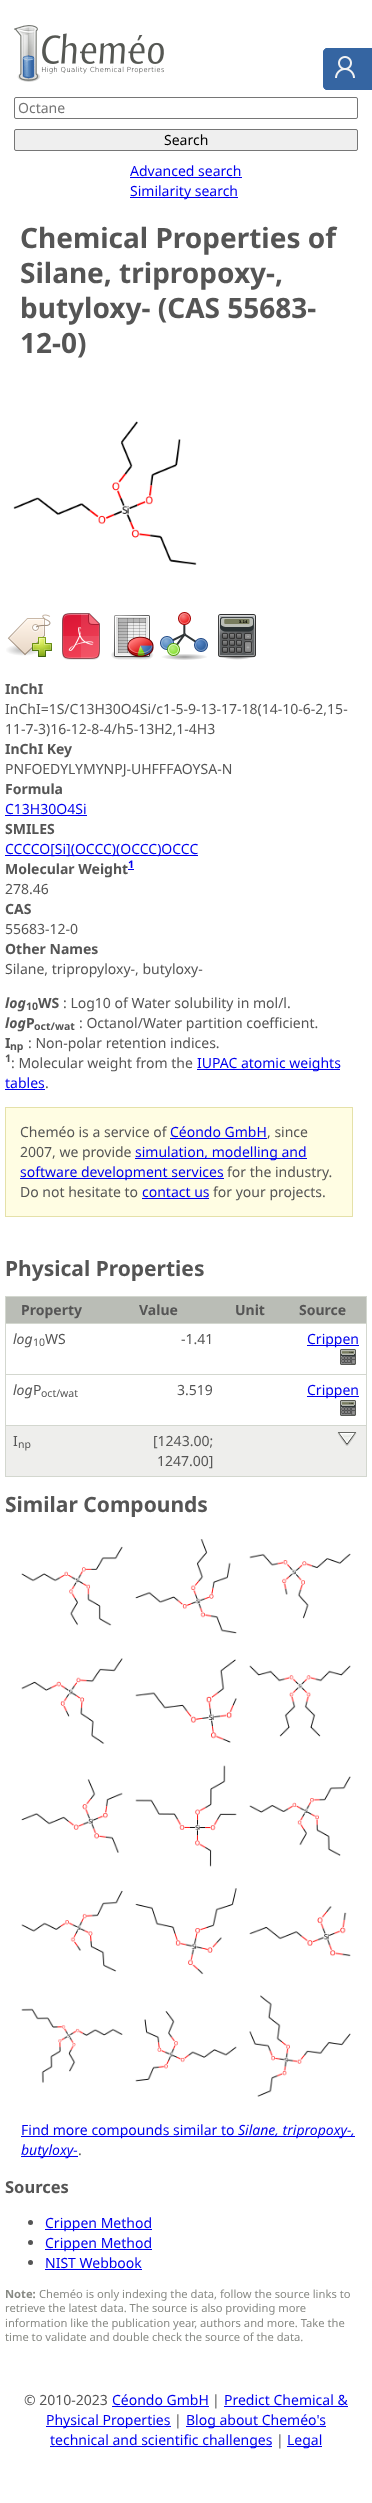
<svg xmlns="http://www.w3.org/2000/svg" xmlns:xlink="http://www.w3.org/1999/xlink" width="372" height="2503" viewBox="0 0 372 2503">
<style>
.cls-1{font:14px Noto Sans;fill:#757575}
.cls-2{font:14px Noto Sans;fill:#000000}
.cls-3{font:14px Noto Sans;fill:#0000ee}
.cls-4{font:bold 28px Noto Sans;fill:#555555}
.cls-5{font:bold 14px Noto Sans;fill:#555555}
.cls-6{font:14px Noto Sans;fill:#555555}
.cls-7{font:bold 10.5px Noto Sans;fill:#0000ee}
.cls-8{font:italic bold 14px Noto Sans;fill:#555555}
.cls-9{font:bold 10.5px Noto Sans;fill:#555555}
.cls-10{font:bold 21px Noto Sans;fill:#555555}
.cls-11{font:italic 14px Noto Sans;fill:#555555}
.cls-12{font:10.5px Noto Sans;fill:#555555}
.cls-13{font:italic 14px Noto Sans;fill:#0000ee}
.cls-14{font:bold 16.5px Noto Sans;fill:#555555}
.cls-15{font:bold 11.2px Noto Sans;fill:#888a85}
.cls-16{font:11.2px Noto Sans;fill:#888a85}
</style>
<rect width="100%" height="100%" fill="#ffffff"/>
<path fill="#3565a2" d="M328 48H372V90H328C325 90 323 88 323 85V53C323 50 325 48 328 48Z"/>
<path fill="#3565a2" fill-rule="evenodd" d="M328 48H372V90H328C325 90 323 88 323 85V53C323 50 325 48 328 48ZM328 49H372V89H328C326 89 324 87 324 85V53C324 51 326 49 328 49Z"/>
<image xlink:href="image0.png" x="335" y="56" width="20" height="22"/>
<image xlink:href="image1.png" x="14" y="25" width="150" height="57"/>
<rect fill="none" stroke="#767676" x="14.5" y="97.5" width="343" height="21" rx="1.5"/>
<rect fill="#efefef" stroke="#767676" x="14.5" y="129.5" width="343" height="21" rx="1.5"/>
<rect fill="#0000ee" x="130" y="177" width="112" height="1"/>
<rect fill="#0000ee" x="130" y="197" width="108" height="1"/>
<image xlink:href="image2.png" x="13" y="421" width="184" height="144"/>
<image xlink:href="image3.png" x="6" y="614" width="46" height="43"/>
<image xlink:href="image4.png" x="62" y="613" width="38" height="47"/>
<image xlink:href="image5.png" x="111" y="615" width="43" height="45"/>
<image xlink:href="image6.png" x="160" y="612" width="48" height="48"/>
<image xlink:href="image7.png" x="218" y="614" width="38" height="46"/>
<rect fill="#0000ee" x="5" y="815" width="82" height="1"/>
<rect fill="#0000ee" x="5" y="855" width="193" height="1"/>
<rect fill="#0000ee" x="128" y="869" width="6" height="1"/>
<rect fill="#0000ee" x="197" y="1069" width="143" height="1"/>
<rect fill="#0000ee" x="5" y="1089" width="40" height="1"/>
<rect fill="#fffde3" stroke="#e5e1a9" x="5.5" y="1107.5" width="347" height="109"/>
<rect fill="#0000ee" x="170" y="1138" width="97" height="1"/>
<rect fill="#0000ee" x="135" y="1158" width="172" height="1"/>
<rect fill="#0000ee" x="20" y="1178" width="204" height="1"/>
<rect fill="#0000ee" x="142" y="1198" width="67" height="1"/>
<rect fill="#d3d7cf" x="366" y="1296" width="1" height="181"/>
<rect fill="#d3d7cf" x="5" y="1476" width="362" height="1"/>
<rect fill="#d3d7cf" x="5" y="1425" width="1" height="52"/>
<rect fill="#d3d7cf" x="5" y="1425" width="362" height="1"/>
<rect fill="#d3d7cf" x="5" y="1374" width="1" height="52"/>
<rect fill="#d3d7cf" x="5" y="1374" width="362" height="1"/>
<rect fill="#d3d7cf" x="5" y="1323" width="1" height="52"/>
<rect fill="#d3d7cf" x="5" y="1323" width="362" height="1"/>
<rect fill="#d3d7cf" x="5" y="1296" width="1" height="28"/>
<rect fill="#babdb6" x="6" y="1297" width="360" height="26"/>
<rect fill="#d3d7cf" x="5" y="1296" width="362" height="1"/>
<rect fill="#0000ee" x="307" y="1345" width="52" height="1"/>
<image xlink:href="image8.png" x="340" y="1349" width="16" height="16"/>
<rect fill="#0000ee" x="307" y="1396" width="52" height="1"/>
<image xlink:href="image8.png" x="340" y="1400" width="16" height="16"/>
<rect fill="#eeeeec" x="6" y="1426" width="360" height="50"/>
<image xlink:href="image9.png" x="337" y="1432" width="20" height="14"/>
<image xlink:href="image10.png" x="21" y="1546" width="102" height="80"/>
<image xlink:href="image11.png" x="135" y="1539" width="102" height="95"/>
<image xlink:href="image12.png" x="249" y="1553" width="102" height="66"/>
<image xlink:href="image13.png" x="21" y="1658" width="102" height="86"/>
<image xlink:href="image14.png" x="135" y="1659" width="102" height="84"/>
<image xlink:href="image15.png" x="249" y="1665" width="102" height="72"/>
<image xlink:href="image16.png" x="21" y="1779" width="102" height="74"/>
<image xlink:href="image17.png" x="135" y="1765" width="102" height="102"/>
<image xlink:href="image18.png" x="249" y="1776" width="102" height="80"/>
<image xlink:href="image19.png" x="21" y="1890" width="102" height="82"/>
<image xlink:href="image20.png" x="135" y="1888" width="102" height="87"/>
<image xlink:href="image21.png" x="249" y="1906" width="102" height="51"/>
<image xlink:href="image22.png" x="21" y="2008" width="102" height="75"/>
<image xlink:href="image23.png" x="135" y="2011" width="102" height="71"/>
<image xlink:href="image24.png" x="249" y="1995" width="102" height="102"/>
<rect fill="#0000ee" x="21" y="2136" width="334" height="1"/>
<rect fill="#0000ee" x="21" y="2156" width="57" height="1"/>
<circle fill="#555555" cx="30.5" cy="2222.5" r="2.5"/>
<rect fill="#0000ee" x="45" y="2229" width="107" height="1"/>
<circle fill="#555555" cx="30.5" cy="2242.5" r="2.5"/>
<rect fill="#0000ee" x="45" y="2249" width="107" height="1"/>
<circle fill="#555555" cx="30.5" cy="2262.5" r="2.5"/>
<rect fill="#0000ee" x="45" y="2269" width="97" height="1"/>
<rect fill="#0000ee" x="112" y="2406" width="97" height="1"/>
<rect fill="#0000ee" x="224" y="2406" width="124" height="1"/>
<rect fill="#0000ee" x="46" y="2426" width="125" height="1"/>
<rect fill="#0000ee" x="186" y="2426" width="140" height="1"/>
<rect fill="#0000ee" x="50" y="2446" width="222" height="1"/>
<rect fill="#0000ee" x="287" y="2446" width="35" height="1"/>
<text class="cls-1" x="18" y="113">Octane</text>
<text class="cls-2" x="164" y="145">Search</text>
<text class="cls-3"><tspan x="130" y="176">Advanced search</tspan><tspan x="130" y="196">Similarity search</tspan></text>
<text class="cls-4"><tspan x="20" y="248">Chemical Properties of</tspan><tspan x="20" y="283">Silane, tripropoxy-,</tspan><tspan x="20" y="318">butyloxy- (CAS 55683-</tspan><tspan x="20" y="353">12-0)</tspan></text>
<text class="cls-5" x="5" y="694">InChI</text>
<text class="cls-6"><tspan x="5" y="714">InChI=1S/C13H30O4Si/c1-5-9-13-17-18(14-10-6-2,15-</tspan><tspan x="5" y="734">11-7-3)16-12-8-4/h5-13H2,1-4H3</tspan></text>
<text class="cls-5" x="5" y="754">InChI Key</text>
<text class="cls-6" x="5" y="774">PNFOEDYLYMYNPJ-UHFFFAOYSA-N</text>
<text class="cls-5" x="5" y="794">Formula</text>
<text class="cls-3" x="5" y="814">C13H30O4Si</text>
<text class="cls-5" x="5" y="834">SMILES</text>
<text class="cls-3" x="5" y="854">CCCCO[Si](OCCC)(OCCC)OCCC</text>
<text class="cls-5" x="5" y="874">Molecular Weight</text>
<text class="cls-7" x="128" y="868">1</text>
<text class="cls-6" x="5" y="894">278.46</text>
<text class="cls-5" x="5" y="914">CAS</text>
<text class="cls-6" x="5" y="934">55683-12-0</text>
<text class="cls-5" x="5" y="954">Other Names</text>
<text class="cls-6" x="5" y="974">Silane, tripropyloxy-, butyloxy-</text>
<text class="cls-8" x="5" y="1008">log</text>
<text class="cls-5" x="38" y="1008">WS</text>
<text class="cls-9" x="26" y="1010">10</text>
<text class="cls-6" x="63" y="1008">: Log10 of Water solubility in mol/l.</text>
<text class="cls-8" x="5" y="1028">log</text>
<text class="cls-5" x="26" y="1028">P</text>
<text class="cls-9" x="34" y="1030">oct/wat</text>
<text class="cls-6" x="79" y="1028">: Octanol/Water partition coefficient.</text>
<text class="cls-5" x="5" y="1048">I</text>
<text class="cls-9" x="10" y="1050">np</text>
<text class="cls-6" x="28" y="1048">: Non-polar retention indices.</text>
<text class="cls-9" x="5" y="1062">1</text>
<text class="cls-6" x="11" y="1068">: Molecular weight from the</text>
<text class="cls-3" x="197" y="1068">IUPAC atomic weights</text>
<text class="cls-3" x="5" y="1088">tables</text>
<text class="cls-6" x="45" y="1088">.</text>
<text class="cls-6" x="20" y="1137">Cheméo is a service of</text>
<text class="cls-3" x="170" y="1137">Céondo GmbH</text>
<text class="cls-6" x="267" y="1137">, since</text>
<text class="cls-6" x="20" y="1157">2007, we provide</text>
<text class="cls-3" x="135" y="1157">simulation, modelling and</text>
<text class="cls-3" x="20" y="1177">software development services</text>
<text class="cls-6" x="227" y="1177">for the industry.</text>
<text class="cls-6" x="20" y="1197">Do not hesitate to</text>
<text class="cls-3" x="142" y="1197">contact us</text>
<text class="cls-6" x="213" y="1197">for your projects.</text>
<text class="cls-10" x="5" y="1276">Physical Properties</text>
<text class="cls-5" x="21" y="1315">Property</text>
<text class="cls-5" x="139" y="1315">Value</text>
<text class="cls-5" x="235" y="1315">Unit</text>
<text class="cls-5" x="299" y="1315">Source</text>
<text class="cls-11" x="13" y="1344">log</text>
<text class="cls-6" x="45" y="1344">WS</text>
<text class="cls-12" x="33" y="1346">10</text>
<text class="cls-6" x="181" y="1344">-1.41</text>
<text class="cls-3" x="307" y="1344">Crippen</text>
<text class="cls-11" x="13" y="1395">log</text>
<text class="cls-6" x="33" y="1395">P</text>
<text class="cls-12" x="41" y="1397">oct/wat</text>
<text class="cls-6" x="177" y="1395">3.519</text>
<text class="cls-3" x="307" y="1395">Crippen</text>
<text class="cls-6" x="13" y="1446">I</text>
<text class="cls-12" x="18" y="1448">np</text>
<text class="cls-6" x="153" y="1446">[1243.00;</text>
<text class="cls-6" x="157" y="1466">1247.00]</text>
<text class="cls-10" x="5" y="1512">Similar Compounds</text>
<text class="cls-3" x="21" y="2135">Find more compounds similar to</text>
<text class="cls-13" x="238" y="2135">Silane, tripropoxy-,</text>
<text class="cls-13" x="21" y="2155">butyloxy-</text>
<text class="cls-6" x="78" y="2155">.</text>
<text class="cls-14" x="5" y="2193">Sources</text>
<text class="cls-3"><tspan x="45" y="2228">Crippen Method</tspan><tspan x="45" y="2248">Crippen Method</tspan><tspan x="45" y="2268">NIST Webbook</tspan></text>
<text class="cls-15" x="5" y="2298">Note:</text>
<text class="cls-16" x="39" y="2298">Cheméo is only indexing the data, follow the source links to</text>
<text class="cls-16"><tspan x="5" y="2312">retrieve the latest data. The source is also providing more</tspan><tspan x="5" y="2327">information like the publication year, authors and more. Take the</tspan><tspan x="5" y="2341">time to validate and double check the source of the data.</tspan></text>
<text class="cls-6" x="24" y="2405">© 2010-2023</text>
<text class="cls-3" x="112" y="2405">Céondo GmbH</text>
<text class="cls-6" x="212" y="2405">|</text>
<text class="cls-3" x="224" y="2405">Predict Chemical &amp;</text>
<text class="cls-3" x="46" y="2425">Physical Properties</text>
<text class="cls-6" x="174" y="2425">|</text>
<text class="cls-3" x="186" y="2425">Blog about Cheméo's</text>
<text class="cls-3" x="50" y="2445">technical and scientific challenges</text>
<text class="cls-6" x="276" y="2445">|</text>
<text class="cls-3" x="287" y="2445">Legal</text>
</svg>
